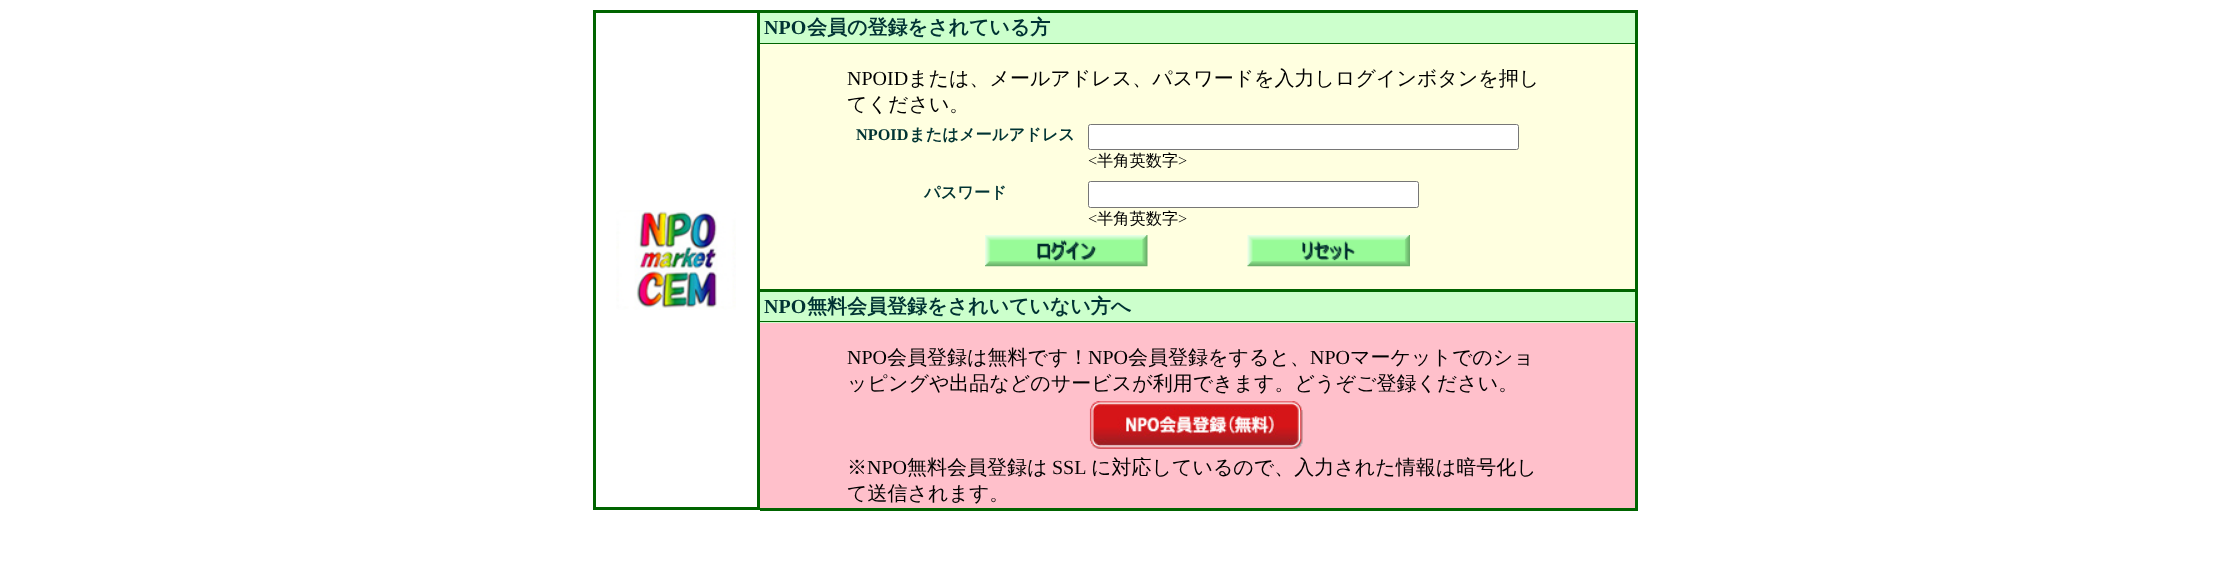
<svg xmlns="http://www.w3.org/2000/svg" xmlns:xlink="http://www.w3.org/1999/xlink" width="2228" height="585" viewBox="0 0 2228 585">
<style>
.cls-1{font:bold 20px Liberation Serif;fill:#003333}
.cls-2{font:bold 20px WenQuanYi Zen Hei;fill:#003333}
.cls-3{font:20px Liberation Serif;fill:#000000}
.cls-4{font:500 20px WenQuanYi Zen Hei;fill:#000000}
.cls-5{font:bold 16.25px Liberation Serif;fill:#003333}
.cls-6{font:bold 16.25px WenQuanYi Zen Hei;fill:#003333}
.cls-7{font:16.25px Liberation Serif;fill:#000000}
.cls-8{font:500 16.25px WenQuanYi Zen Hei;fill:#000000}
</style>
<rect width="100%" height="100%" fill="#ffffff"/>
<rect fill="none" stroke="#006400" stroke-width="3" x="594.5" y="11.5" width="164" height="497"/>
<image xlink:href="image0.png" x="616" y="210" width="120" height="100"/>
<rect fill="#006400" x="760" y="10" width="878" height="3"/>
<rect fill="#006400" x="1635" y="10" width="3" height="500"/>
<rect fill="#006400" x="760" y="508" width="878" height="3"/>
<rect fill="#ccffcc" x="760" y="13" width="875" height="30"/>
<rect fill="#006400" x="760" y="43" width="875" height="1"/>
<rect fill="#ffffe0" x="760" y="44" width="875" height="245"/>
<rect fill="#ffffff" stroke="#767676" x="1088.5" y="124.5" width="430" height="25" rx="2"/>
<rect fill="#ffffff" stroke="#767676" x="1088.5" y="181.5" width="330" height="26" rx="2"/>
<image xlink:href="image1.png" x="985" y="235" width="163" height="32"/>
<image xlink:href="image2.png" x="1247" y="235" width="163" height="32"/>
<rect fill="#ccffcc" x="760" y="292" width="875" height="31"/>
<rect fill="#006400" x="760" y="289" width="875" height="3"/>
<rect fill="#006400" x="760" y="321" width="875" height="1"/>
<rect fill="#ffc0cb" x="760" y="323" width="875" height="185"/>
<image xlink:href="image3.png" x="1089" y="401" width="214" height="48"/>
<text class="cls-1" x="764" y="34">NPO</text>
<text class="cls-2" x="807" y="34">会員の登録をされている方</text>
<text class="cls-3" x="847" y="85">NPOID</text>
<text class="cls-4" x="908" y="85">または、メールアドレス、パスワードを入力しログインボタンを押し</text>
<text class="cls-4" x="847" y="111">てください。</text>
<text class="cls-5" x="856" y="140">NPOID</text>
<text class="cls-6" x="909" y="140">またはメールアドレス</text>
<text class="cls-7" x="1088" y="166">&lt;</text>
<text class="cls-8" x="1097" y="166">半角英数字</text>
<text class="cls-7" x="1178" y="166">&gt;</text>
<text class="cls-6" x="924" y="198">パスワード</text>
<text class="cls-7" x="1088" y="224">&lt;</text>
<text class="cls-8" x="1097" y="224">半角英数字</text>
<text class="cls-7" x="1178" y="224">&gt;</text>
<text class="cls-1" x="764" y="313">NPO</text>
<text class="cls-2" x="807" y="313">無料会員登録をされいていない方へ</text>
<text class="cls-3" x="847" y="364">NPO</text>
<text class="cls-4" x="887" y="364">会員登録は無料です！</text>
<text class="cls-3" x="1088" y="364">NPO</text>
<text class="cls-4" x="1128" y="364">会員登録をすると、</text>
<text class="cls-3" x="1310" y="364">NPO</text>
<text class="cls-4" x="1350" y="364">マーケットでのショ</text>
<text class="cls-4" x="847" y="390">ッピングや出品などのサービスが利用できます。どうぞご登録ください。</text>
<text class="cls-4" x="847" y="474">※</text>
<text class="cls-3" x="867" y="474">NPO</text>
<text class="cls-4" x="907" y="474">無料会員登録は</text>
<text class="cls-3" x="1052" y="474">SSL</text>
<text class="cls-4" x="1091" y="474">に対応しているので、入力された情報は暗号化し</text>
<text class="cls-4" x="847" y="500">て送信されます。</text>
</svg>
